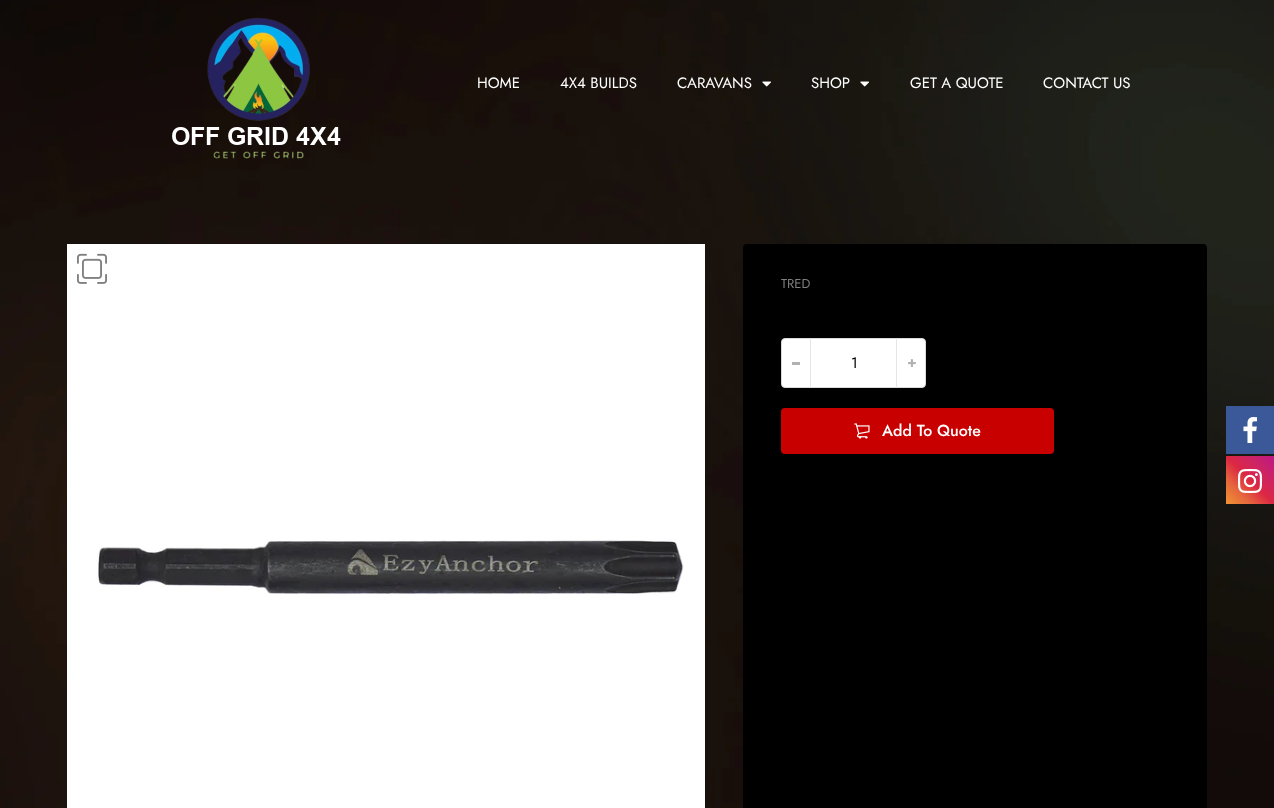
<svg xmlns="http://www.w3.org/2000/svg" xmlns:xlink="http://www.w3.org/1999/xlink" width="1274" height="808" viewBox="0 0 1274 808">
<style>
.cls-1{font:15px Jost;fill:#ffffff}
.cls-2{font:13px Jost;fill:#808080}
.cls-3{font:15px Jost;fill:#000000}
.cls-4{font:500 16px Jost;fill:#ffffff}
</style>
<defs>
<linearGradient id="g1" gradientUnits="userSpaceOnUse" x1="1226" y1="504" x2="1274" y2="456"><stop offset="0" stop-color="#f09433"/><stop offset="0.25" stop-color="#e6683c"/><stop offset="0.5" stop-color="#dc2743"/><stop offset="0.75" stop-color="#cc2366"/><stop offset="1" stop-color="#bc1888"/></linearGradient>
</defs>
<rect width="100%" height="100%" fill="#ffffff"/>
<image xlink:href="image0.png" x="0" y="0" width="1274" height="808"/>
<image xlink:href="image1.png" x="172" y="17" width="169" height="142"/>
<image xlink:href="image2.png" x="762" y="81" width="9" height="6"/>
<image xlink:href="image3.png" x="860" y="81" width="9" height="6"/>
<image xlink:href="image4.png" x="67" y="244" width="638" height="564"/>
<image xlink:href="image5.png" x="77" y="253" width="30" height="31"/>
<rect fill="#000000" x="743" y="244" width="464" height="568" rx="4"/>
<rect fill="#ffffff" stroke="#d9d9d9" x="781.5" y="338.5" width="144" height="49" rx="3.5"/>
<rect fill="#e5e5e5" x="810" y="338" width="1" height="50"/>
<rect fill="#b2b2b2" x="792" y="362" width="8" height="3"/>
<rect fill="#e5e5e5" x="896" y="338" width="1" height="50"/>
<image xlink:href="image6.png" x="908" y="359" width="8" height="8"/>
<rect fill="#c90000" x="781" y="408" width="273" height="46" rx="4"/>
<image xlink:href="image7.png" x="854" y="423" width="16" height="16"/>
<rect fill="#3b5998" x="1226" y="406" width="48" height="48"/>
<image xlink:href="image8.png" x="1243" y="417" width="14" height="26"/>
<rect fill="url(#g1)" x="1226" y="456" width="48" height="48"/>
<image xlink:href="image9.png" x="1238" y="469" width="24" height="24"/>
<text class="cls-1" x="477" y="88">HOME</text>
<text class="cls-1" x="560" y="88">4X4 BUILDS</text>
<text class="cls-1" x="677" y="88">CARAVANS</text>
<text class="cls-1" x="811" y="88">SHOP</text>
<text class="cls-1" x="910" y="88">GET A QUOTE</text>
<text class="cls-1" x="1043" y="88">CONTACT US</text>
<text class="cls-2" x="781" y="288">TRED</text>
<text class="cls-3" x="851" y="368">1</text>
<text class="cls-4" x="882" y="436">Add To Quote</text>
</svg>
